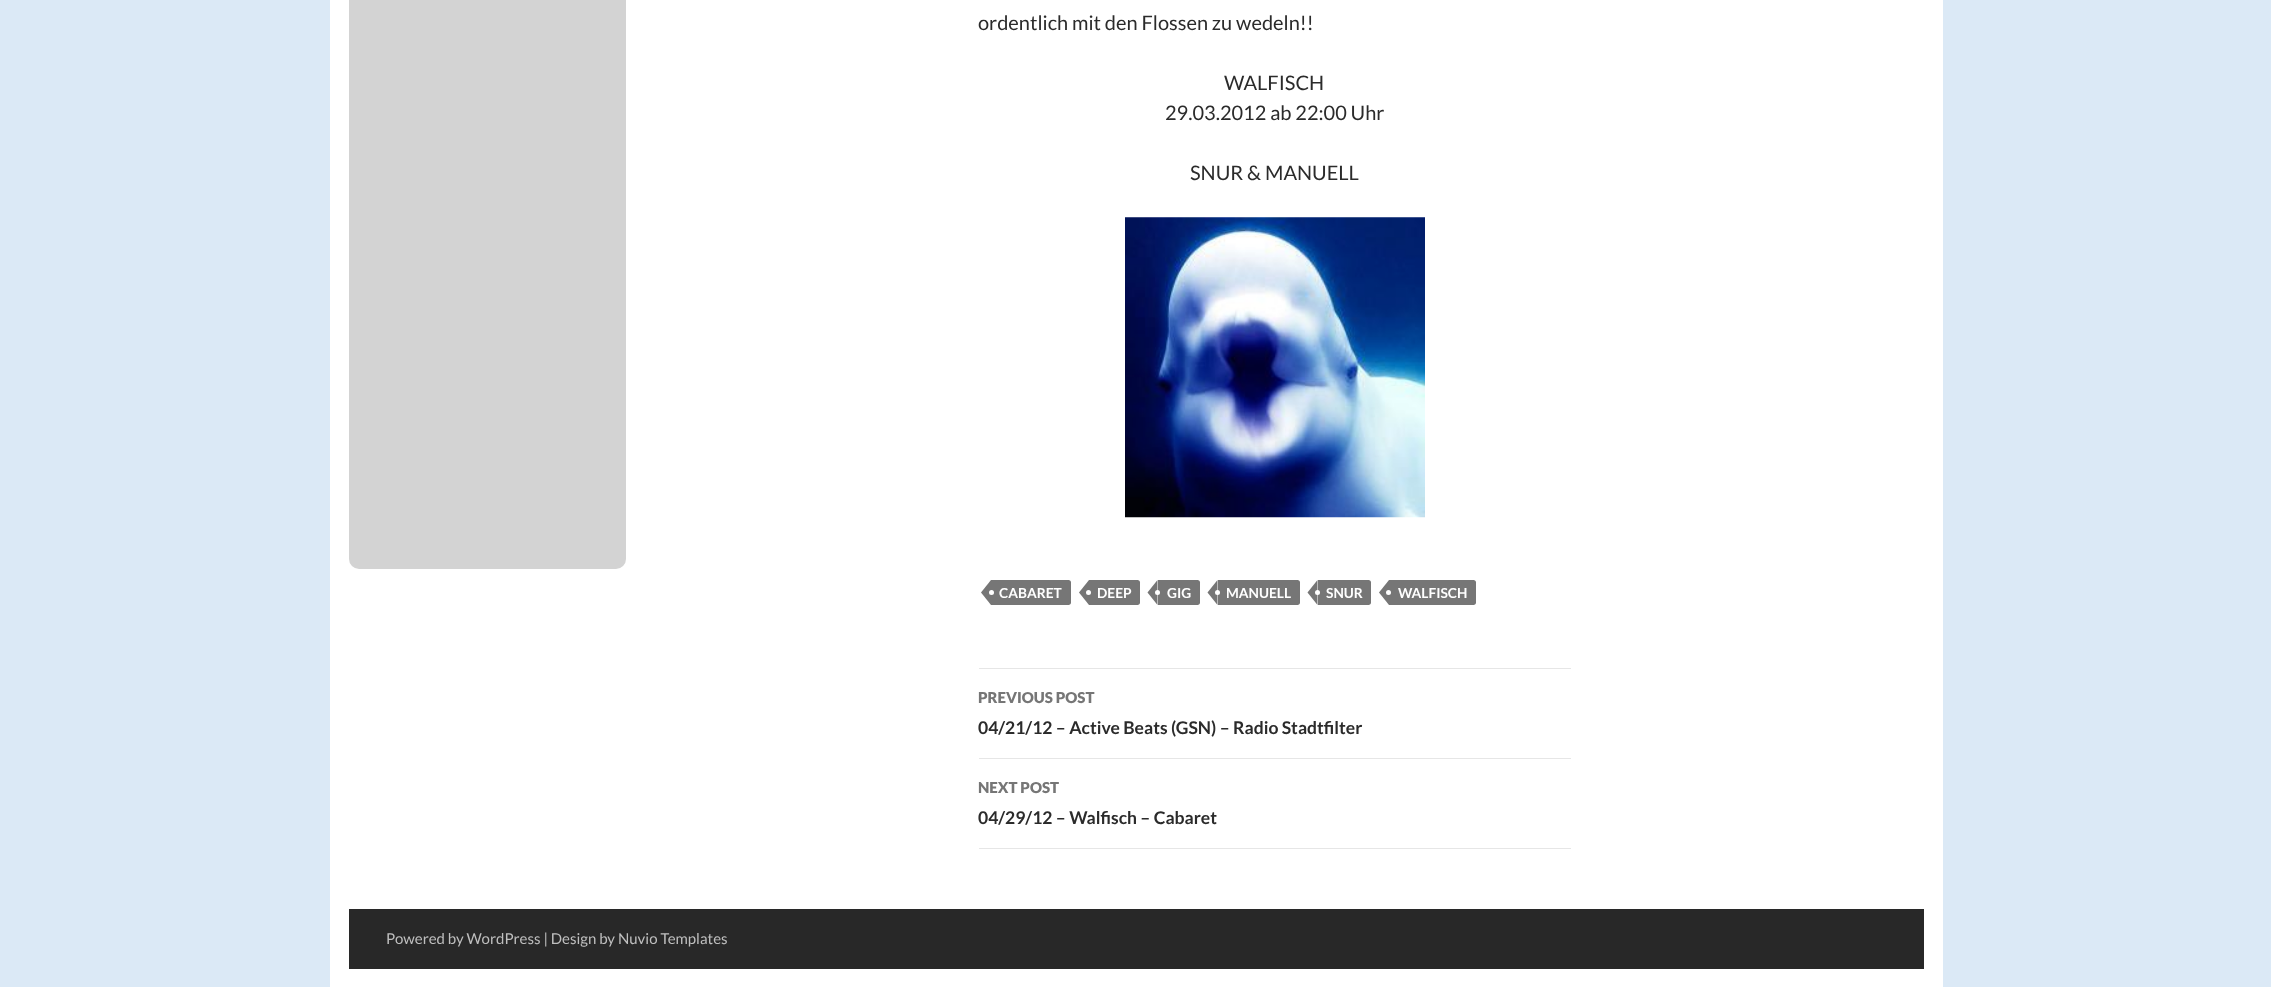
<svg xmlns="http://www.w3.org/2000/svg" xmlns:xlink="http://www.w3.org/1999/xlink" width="2271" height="987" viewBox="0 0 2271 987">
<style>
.cls-1{font:20px Lato;fill:#2b2b2b}
.cls-2{font:bold 13.75px Lato;fill:#ffffff}
.cls-3{font:900 15px Lato;fill:#767676}
.cls-4{font:bold 17.5px Lato;fill:#2b2b2b}
.cls-5{font:15px Lato;fill:#bfbfbf}
</style>
<rect width="100%" height="100%" fill="#dbe9f6"/>
<rect fill="#ffffff" x="330" y="0" width="1613" height="987"/>
<rect fill="#d3d3d3" x="349" y="-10" width="277" height="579" rx="10"/>
<image xlink:href="image0.png" x="1125" y="217" width="300" height="301"/>
<path fill="#767676" d="M991 580H1068.5C1070 580 1071 581 1071 582.5V602.5C1071 604 1070 605 1068.5 605H991Z"/>
<path fill="#767676" d="M991 580V605L981 592.5Z"/>
<circle fill="#ffffff" cx="991.5" cy="592.5" r="2.5"/>
<path fill="#767676" d="M1089 580H1137.5C1139 580 1140 581 1140 582.5V602.5C1140 604 1139 605 1137.5 605H1089Z"/>
<path fill="#767676" d="M1089 580V605L1079 592.5Z"/>
<circle fill="#ffffff" cx="1088.5" cy="592.5" r="2.5"/>
<path fill="#767676" d="M1158 580H1197.5C1199 580 1200 581 1200 582.5V602.5C1200 604 1199 605 1197.5 605H1158Z"/>
<path fill="#767676" d="M1157.5 580V605L1147.5 592.5Z"/>
<circle fill="#ffffff" cx="1157.5" cy="592.5" r="2.5"/>
<path fill="#767676" d="M1218 580H1297.5C1299 580 1300 581 1300 582.5V602.5C1300 604 1299 605 1297.5 605H1218Z"/>
<path fill="#767676" d="M1217.5 580V605L1207.5 592.5Z"/>
<circle fill="#ffffff" cx="1217.5" cy="592.5" r="2.5"/>
<path fill="#767676" d="M1318 580H1368.5C1370 580 1371 581 1371 582.5V602.5C1371 604 1370 605 1368.5 605H1318Z"/>
<path fill="#767676" d="M1317.5 580V605L1307.5 592.5Z"/>
<circle fill="#ffffff" cx="1317.5" cy="592.5" r="2.5"/>
<path fill="#767676" d="M1389 580H1473.5C1475 580 1476 581 1476 582.5V602.5C1476 604 1475 605 1473.5 605H1389Z"/>
<path fill="#767676" d="M1389 580V605L1379 592.5Z"/>
<circle fill="#ffffff" cx="1388.5" cy="592.5" r="2.5"/>
<rect fill="#e6e6e6" x="979" y="668" width="592" height="1"/>
<rect fill="#e6e6e6" x="979" y="758" width="592" height="1"/>
<rect fill="#e6e6e6" x="979" y="848" width="592" height="1"/>
<rect fill="#282828" x="349" y="909" width="1575" height="60"/>
<text class="cls-1" x="978" y="30">ordentlich mit den Flossen zu wedeln!!</text>
<text class="cls-1" x="1224" y="90">WALFISCH</text>
<text class="cls-1" x="1165" y="120">29.03.2012 ab 22:00 Uhr</text>
<text class="cls-1" x="1190" y="180">SNUR &amp; MANUELL</text>
<text class="cls-2" x="999" y="598">CABARET</text>
<text class="cls-2" x="1097" y="598">DEEP</text>
<text class="cls-2" x="1167" y="598">GIG</text>
<text class="cls-2" x="1226" y="598">MANUELL</text>
<text class="cls-2" x="1326" y="598">SNUR</text>
<text class="cls-2" x="1398" y="598">WALFISCH</text>
<text class="cls-3" x="978" y="703">PREVIOUS POST</text>
<text class="cls-4" x="978" y="734">04/21/12 – Active Beats (GSN) – Radio Stadtfilter</text>
<text class="cls-3" x="978" y="793">NEXT POST</text>
<text class="cls-4" x="978" y="824">04/29/12 – Walfisch – Cabaret</text>
<text class="cls-5" x="386" y="944">Powered by WordPress | Design by Nuvio Templates</text>
</svg>
